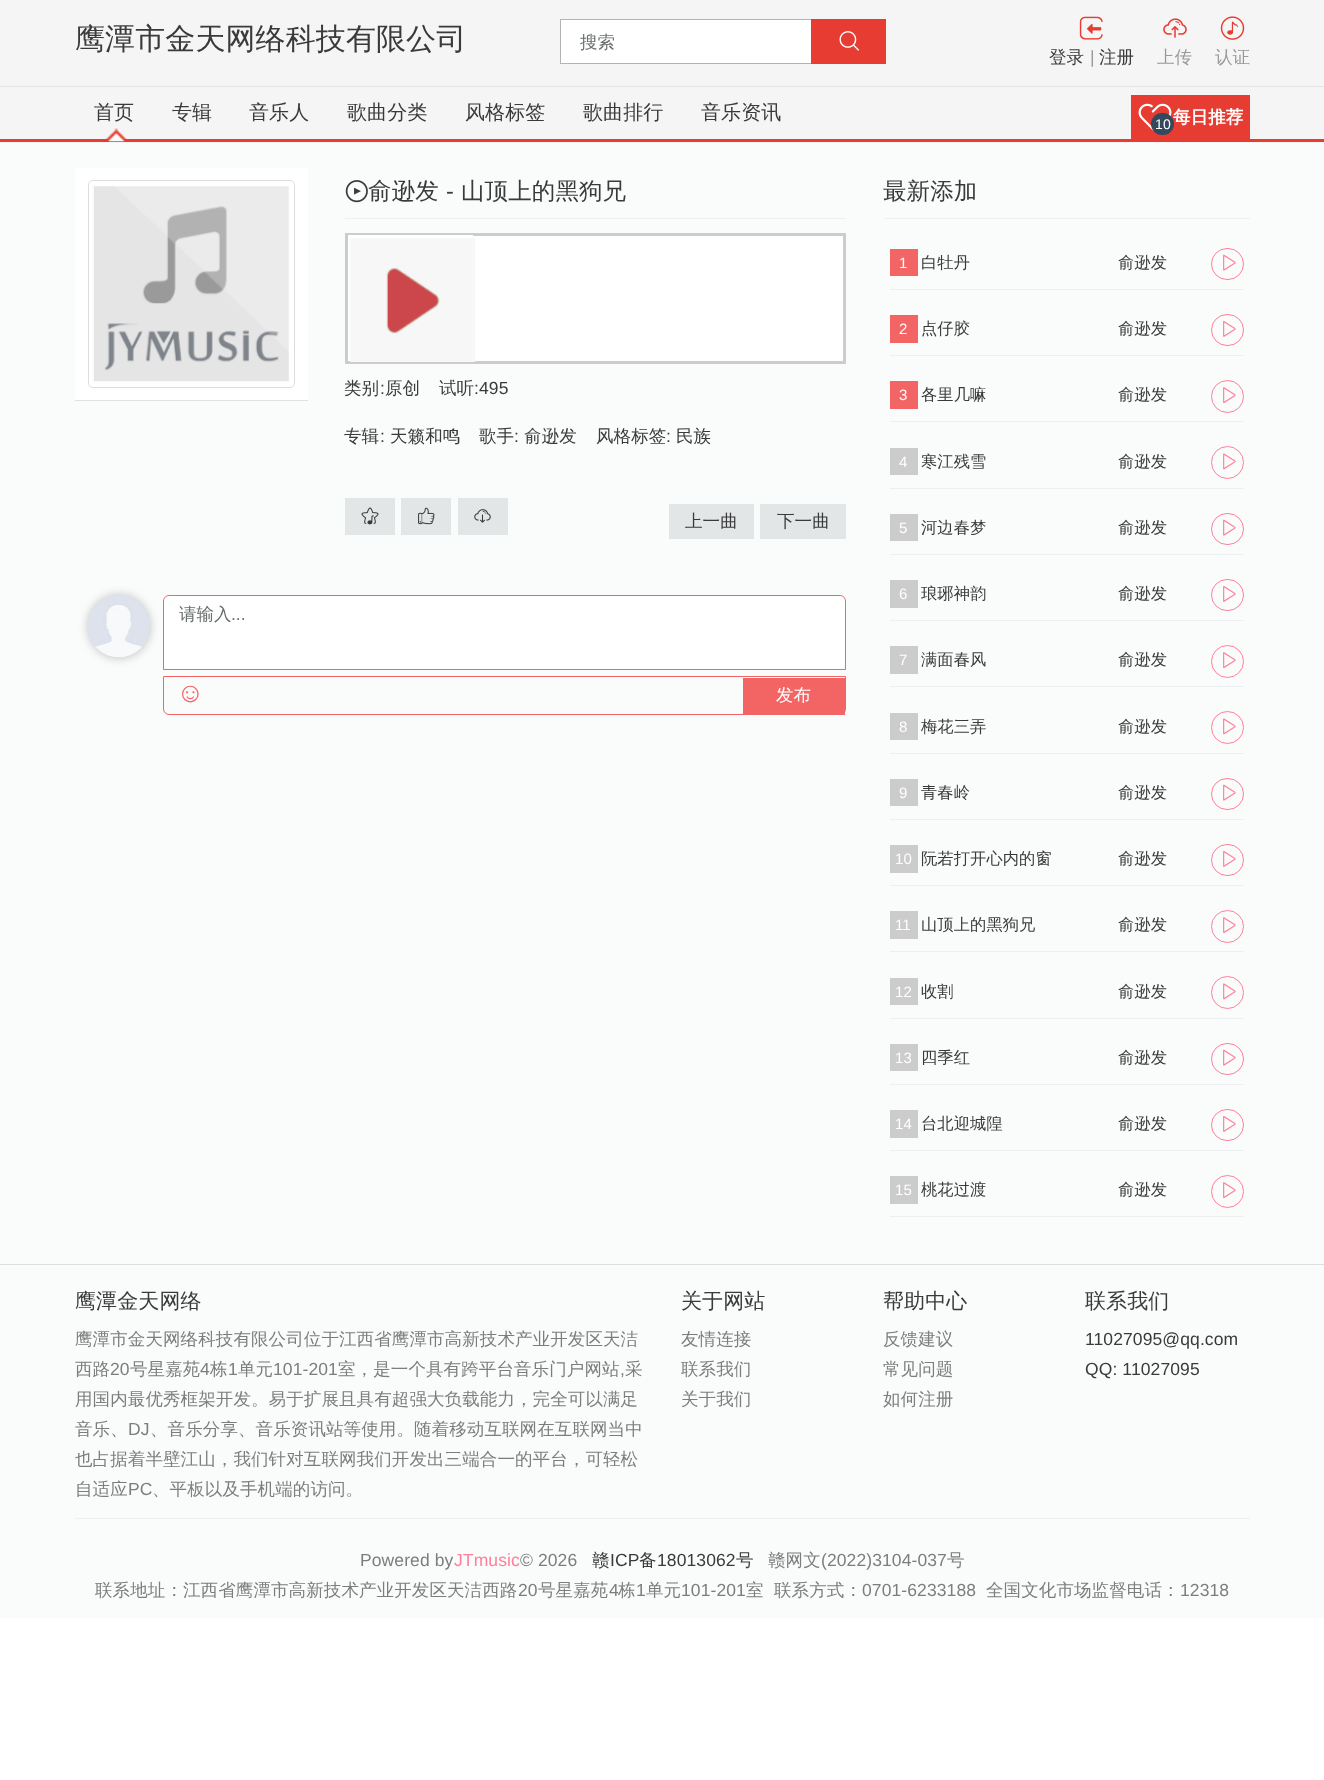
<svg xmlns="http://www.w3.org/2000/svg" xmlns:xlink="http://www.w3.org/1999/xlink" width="1324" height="1780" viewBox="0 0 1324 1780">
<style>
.cls-1{font:500 30px WenQuanYi Zen Hei;letter-spacing:0.1px;fill:#3a3a3a}
.cls-2{font:500 17.5px WenQuanYi Zen Hei;fill:#696e6e}
.cls-3{font:500 17.5px WenQuanYi Zen Hei;letter-spacing:0.1px;fill:#3a3a3a}
.cls-4{font:17.5px Liberation Sans;letter-spacing:0.1px;fill:#999999}
.cls-5{font:500 17.5px WenQuanYi Zen Hei;letter-spacing:0.1px;fill:#999999}
.cls-6{font:500 20px WenQuanYi Zen Hei;letter-spacing:0.1px;fill:#3a3a3a}
.cls-7{font:bold 17.5px WenQuanYi Zen Hei;letter-spacing:0.1px;fill:#ffffff}
.cls-8{font:14px Liberation Sans;letter-spacing:0.1px;fill:#ffffff}
.cls-9{font:500 23.5px WenQuanYi Zen Hei;letter-spacing:0.1px;fill:#3a3a3a}
.cls-10{font:23.5px Liberation Sans;letter-spacing:0.1px;fill:#3a3a3a}
.cls-11{font:17.5px Liberation Sans;letter-spacing:0.1px;fill:#3a3a3a}
.cls-12{font:17.5px Liberation Sans;fill:#696e6e}
.cls-13{font:28px Liberation Serif;letter-spacing:0.1px;fill:#f36565}
.cls-14{font:500 17.5px WenQuanYi Zen Hei;letter-spacing:0.1px;fill:#ffffff}
.cls-15{font:15px Liberation Sans;letter-spacing:0.1px;fill:#ffffff}
.cls-16{font:500 16.25px WenQuanYi Zen Hei;letter-spacing:0.1px;fill:#3a3a3a}
.cls-17{font:500 21px WenQuanYi Zen Hei;letter-spacing:0.1px;fill:#3a3a3a}
.cls-18{font:500 17.5px WenQuanYi Zen Hei;letter-spacing:0.1px;fill:#7d7d7d}
.cls-19{font:17.5px Liberation Sans;letter-spacing:0.1px;fill:#7d7d7d}
.cls-20{font:17.5px Liberation Sans;letter-spacing:0.1px;fill:#ff7f9a}
</style>
<defs>
<clipPath id="clip1"><rect x="348" y="235" width="496" height="126"/></clipPath>
</defs>
<rect width="100%" height="100%" fill="#ffffff"/>
<rect fill="#fafbfb" x="0" y="143" width="1324" height="1475"/>
<rect fill="#f5f5f5" x="0" y="0" width="1324" height="143"/>
<rect fill="#e2e6e7" x="0" y="86" width="1324" height="1"/>
<rect fill="#ffffff" x="561" y="20" width="250" height="43"/>
<rect fill="none" stroke="#b3b3b3" x="560.5" y="19.5" width="325" height="44"/>
<rect fill="#e73c31" x="811" y="19" width="75" height="45"/>
<image xlink:href="image0.png" x="839" y="31" width="20" height="20"/>
<image xlink:href="image1.png" x="1079" y="16" width="24" height="24"/>
<image xlink:href="image2.png" x="1163" y="18" width="24" height="20"/>
<image xlink:href="image3.png" x="1220" y="16" width="25" height="24"/>
<rect fill="#e73c31" x="0" y="139" width="1324" height="3"/>
<rect fill="#e73c31" x="1131" y="95" width="119" height="44"/>
<image xlink:href="image4.png" x="1138" y="103" width="34" height="29"/>
<image xlink:href="image5.png" x="105" y="128" width="22" height="14"/>
<rect fill="#000000" fill-opacity="0.1" filter="blur(0.5px)" x="75" y="169" width="233" height="232"/>
<rect fill="#ffffff" x="75" y="168" width="233" height="232"/>
<rect fill="none" stroke="#dddddd" x="88.5" y="180.5" width="206" height="207" rx="4.5"/>
<image xlink:href="image6.png" x="93" y="186" width="196" height="196"/>
<image xlink:href="image7.png" x="345" y="180" width="23" height="23"/>
<rect fill="#ecf0f1" x="345" y="218" width="501" height="1"/>
<rect fill="#ffffff" x="473" y="236" width="370" height="125"/>
<rect fill="none" stroke="#cccccc" stroke-width="3" x="346.5" y="234.5" width="498" height="128"/>
<g clip-path="url(#clip1)">
<rect fill="none" stroke="#ffffff" stroke-width="3" x="349.5" y="236.5" width="122" height="128"/>
</g>
<image xlink:href="image8.png" x="349" y="238" width="127" height="124"/>
<rect fill="#e2e6e7" x="345" y="498" width="50" height="37"/>
<image xlink:href="image9.png" x="361" y="507" width="18" height="18"/>
<rect fill="#e2e6e7" x="401" y="498" width="50" height="37"/>
<image xlink:href="image10.png" x="418" y="507" width="17" height="18"/>
<rect fill="#e2e6e7" x="458" y="498" width="50" height="37"/>
<image xlink:href="image11.png" x="474" y="509" width="17" height="14"/>
<rect fill="#e2e6e7" x="669" y="504" width="85" height="35"/>
<rect fill="#e2e6e7" x="760" y="504" width="86" height="35"/>
<rect fill="#c0c0c0" filter="blur(5px)" x="88" y="595" width="62" height="63" rx="31"/>
<image xlink:href="image12.png" x="87" y="595" width="63" height="63"/>
<path fill="none" stroke="#f36565" d="M169 595.5H840C843 595.5 845.5 598 845.5 601V669.5H163.5V601C163.5 598 166 595.5 169 595.5Z"/>
<rect fill="#ffffff" x="164" y="596" width="681" height="73" rx="6"/>
<path fill="none" stroke="#f36565" d="M163.5 676.5H845.5V709C845.5 712 843 714.5 840 714.5H169C166 714.5 163.5 712 163.5 709Z"/>
<rect fill="#f36565" x="743" y="678" width="102" height="37"/>
<rect fill="#ecf0f1" x="884" y="218" width="366" height="1"/>
<rect fill="#f36565" x="890" y="249" width="28" height="27"/>
<rect fill="none" stroke="#ff7f9a" x="1211.5" y="248.5" width="32" height="31" rx="15.5"/>
<image xlink:href="image13.png" x="1223" y="254" width="13" height="17"/>
<rect fill="#ecf0f1" x="890" y="289" width="354" height="1"/>
<rect fill="#f36565" x="890" y="315" width="28" height="28"/>
<rect fill="none" stroke="#ff7f9a" x="1211.5" y="314.5" width="32" height="31" rx="15.5"/>
<image xlink:href="image14.png" x="1223" y="321" width="13" height="16"/>
<rect fill="#ecf0f1" x="890" y="355" width="354" height="1"/>
<rect fill="#f36565" x="890" y="381" width="28" height="28"/>
<circle fill="none" stroke="#ff7f9a" cx="1227.5" cy="396.5" r="16"/>
<image xlink:href="image15.png" x="1223" y="387" width="13" height="17"/>
<rect fill="#ecf0f1" x="890" y="421" width="354" height="1"/>
<rect fill="#cccccc" x="890" y="448" width="28" height="27"/>
<circle fill="none" stroke="#ff7f9a" cx="1227.5" cy="462.5" r="16"/>
<image xlink:href="image16.png" x="1223" y="453" width="13" height="17"/>
<rect fill="#ecf0f1" x="890" y="488" width="354" height="1"/>
<rect fill="#cccccc" x="890" y="514" width="28" height="27"/>
<rect fill="none" stroke="#ff7f9a" x="1211.5" y="513.5" width="32" height="31" rx="15.5"/>
<image xlink:href="image13.png" x="1223" y="519" width="13" height="17"/>
<rect fill="#ecf0f1" x="890" y="554" width="354" height="1"/>
<rect fill="#cccccc" x="890" y="580" width="28" height="28"/>
<rect fill="none" stroke="#ff7f9a" x="1211.5" y="579.5" width="32" height="31" rx="15.5"/>
<image xlink:href="image14.png" x="1223" y="586" width="13" height="16"/>
<rect fill="#ecf0f1" x="890" y="620" width="354" height="1"/>
<rect fill="#cccccc" x="890" y="646" width="28" height="28"/>
<circle fill="none" stroke="#ff7f9a" cx="1227.5" cy="661.5" r="16"/>
<image xlink:href="image15.png" x="1223" y="652" width="13" height="17"/>
<rect fill="#ecf0f1" x="890" y="686" width="354" height="1"/>
<rect fill="#cccccc" x="890" y="713" width="28" height="27"/>
<circle fill="none" stroke="#ff7f9a" cx="1227.5" cy="727.5" r="16"/>
<image xlink:href="image16.png" x="1223" y="718" width="13" height="17"/>
<rect fill="#ecf0f1" x="890" y="753" width="354" height="1"/>
<rect fill="#cccccc" x="890" y="779" width="28" height="27"/>
<rect fill="none" stroke="#ff7f9a" x="1211.5" y="778.5" width="32" height="31" rx="15.5"/>
<image xlink:href="image13.png" x="1223" y="784" width="13" height="17"/>
<rect fill="#ecf0f1" x="890" y="819" width="354" height="1"/>
<rect fill="#cccccc" x="890" y="845" width="28" height="28"/>
<rect fill="none" stroke="#ff7f9a" x="1211.5" y="844.5" width="32" height="31" rx="15.5"/>
<image xlink:href="image14.png" x="1223" y="851" width="13" height="16"/>
<rect fill="#ecf0f1" x="890" y="885" width="354" height="1"/>
<rect fill="#cccccc" x="890" y="911" width="28" height="28"/>
<circle fill="none" stroke="#ff7f9a" cx="1227.5" cy="926.5" r="16"/>
<image xlink:href="image15.png" x="1223" y="917" width="13" height="17"/>
<rect fill="#ecf0f1" x="890" y="951" width="354" height="1"/>
<rect fill="#cccccc" x="890" y="978" width="28" height="27"/>
<circle fill="none" stroke="#ff7f9a" cx="1227.5" cy="992.5" r="16"/>
<image xlink:href="image16.png" x="1223" y="983" width="13" height="17"/>
<rect fill="#ecf0f1" x="890" y="1018" width="354" height="1"/>
<rect fill="#cccccc" x="890" y="1044" width="28" height="27"/>
<rect fill="none" stroke="#ff7f9a" x="1211.5" y="1043.5" width="32" height="31" rx="15.5"/>
<image xlink:href="image13.png" x="1223" y="1049" width="13" height="17"/>
<rect fill="#ecf0f1" x="890" y="1084" width="354" height="1"/>
<rect fill="#cccccc" x="890" y="1110" width="28" height="28"/>
<rect fill="none" stroke="#ff7f9a" x="1211.5" y="1109.5" width="32" height="31" rx="15.5"/>
<image xlink:href="image14.png" x="1223" y="1116" width="13" height="16"/>
<rect fill="#ecf0f1" x="890" y="1150" width="354" height="1"/>
<rect fill="#cccccc" x="890" y="1176" width="28" height="28"/>
<circle fill="none" stroke="#ff7f9a" cx="1227.5" cy="1191.5" r="16"/>
<image xlink:href="image15.png" x="1223" y="1182" width="13" height="17"/>
<rect fill="#ecf0f1" x="890" y="1216" width="354" height="1"/>
<rect fill="#dedede" x="0" y="1264" width="1324" height="1"/>
<rect fill="#ecf0f1" x="75" y="1518" width="1175" height="1"/>
<text class="cls-1" x="75" y="49">鹰潭市金天网络科技有限公司</text>
<text class="cls-2" x="580" y="48">搜索</text>
<text class="cls-3" x="1049" y="63">登录</text>
<text class="cls-4" x="1090" y="63">|</text>
<text class="cls-3" x="1099" y="63">注册</text>
<text class="cls-5" x="1157" y="63">上传</text>
<text class="cls-5" x="1215" y="63">认证</text>
<text class="cls-6" x="94" y="119">首页</text>
<text class="cls-6" x="172" y="119">专辑</text>
<text class="cls-6" x="249" y="119">音乐人</text>
<text class="cls-6" x="347" y="119">歌曲分类</text>
<text class="cls-6" x="465" y="119">风格标签</text>
<text class="cls-6" x="583" y="119">歌曲排行</text>
<text class="cls-6" x="701" y="119">音乐资讯</text>
<text class="cls-7" x="1173" y="123">每日推荐</text>
<rect fill="#34495e" x="1151" y="113" width="23" height="22" rx="11"/>
<text class="cls-8" x="1155" y="129">10</text>
<text class="cls-9" x="368" y="199">俞逊发</text>
<text class="cls-10" x="446" y="199">-</text>
<text class="cls-9" x="461" y="199">山顶上的黑狗兄</text>
<text class="cls-3" x="344" y="394">类别</text>
<text class="cls-11" x="380" y="394">:</text>
<text class="cls-3" x="385" y="394">原创</text>
<text class="cls-3" x="439" y="394">试听</text>
<text class="cls-11" x="474" y="394">:495</text>
<text class="cls-3" x="344" y="442">专辑</text>
<text class="cls-11" x="380" y="442">:</text>
<text class="cls-3" x="390" y="442">天籁和鸣</text>
<text class="cls-3" x="479" y="442">歌手</text>
<text class="cls-11" x="514" y="442">:</text>
<text class="cls-3" x="524" y="442">俞逊发</text>
<text class="cls-3" x="596" y="442">风格标签</text>
<text class="cls-11" x="666" y="442">:</text>
<text class="cls-3" x="676" y="442">民族</text>
<text class="cls-3" x="685" y="527">上一曲</text>
<text class="cls-3" x="777" y="527">下一曲</text>
<text class="cls-2" x="179" y="620">请输入</text>
<text class="cls-12" x="231" y="620">...</text>
<text class="cls-13" x="176" y="702">☺</text>
<text class="cls-14" x="776" y="701">发布</text>
<text class="cls-9" x="883" y="199">最新添加</text>
<text class="cls-15" x="899" y="268">1</text>
<text class="cls-16" x="921" y="268">白牡丹</text>
<text class="cls-16" x="1118" y="268">俞逊发</text>
<text class="cls-15" x="899" y="334">2</text>
<text class="cls-16" x="921" y="334">点仔胶</text>
<text class="cls-16" x="1118" y="334">俞逊发</text>
<text class="cls-15" x="899" y="400">3</text>
<text class="cls-16" x="921" y="400">各里几嘛</text>
<text class="cls-16" x="1118" y="400">俞逊发</text>
<text class="cls-15" x="899" y="467">4</text>
<text class="cls-16" x="921" y="467">寒江残雪</text>
<text class="cls-16" x="1118" y="467">俞逊发</text>
<text class="cls-15" x="899" y="533">5</text>
<text class="cls-16" x="921" y="533">河边春梦</text>
<text class="cls-16" x="1118" y="533">俞逊发</text>
<text class="cls-15" x="899" y="599">6</text>
<text class="cls-16" x="921" y="599">琅琊神韵</text>
<text class="cls-16" x="1118" y="599">俞逊发</text>
<text class="cls-15" x="899" y="665">7</text>
<text class="cls-16" x="921" y="665">满面春风</text>
<text class="cls-16" x="1118" y="665">俞逊发</text>
<text class="cls-15" x="899" y="732">8</text>
<text class="cls-16" x="921" y="732">梅花三弄</text>
<text class="cls-16" x="1118" y="732">俞逊发</text>
<text class="cls-15" x="899" y="798">9</text>
<text class="cls-16" x="921" y="798">青春岭</text>
<text class="cls-16" x="1118" y="798">俞逊发</text>
<text class="cls-15" x="895" y="864">10</text>
<text class="cls-16" x="921" y="864">阮若打开心内的窗</text>
<text class="cls-16" x="1118" y="864">俞逊发</text>
<text class="cls-15" x="895" y="930">11</text>
<text class="cls-16" x="921" y="930">山顶上的黑狗兄</text>
<text class="cls-16" x="1118" y="930">俞逊发</text>
<text class="cls-15" x="895" y="997">12</text>
<text class="cls-16" x="921" y="997">收割</text>
<text class="cls-16" x="1118" y="997">俞逊发</text>
<text class="cls-15" x="895" y="1063">13</text>
<text class="cls-16" x="921" y="1063">四季红</text>
<text class="cls-16" x="1118" y="1063">俞逊发</text>
<text class="cls-15" x="895" y="1129">14</text>
<text class="cls-16" x="921" y="1129">台北迎城隍</text>
<text class="cls-16" x="1118" y="1129">俞逊发</text>
<text class="cls-15" x="895" y="1195">15</text>
<text class="cls-16" x="921" y="1195">桃花过渡</text>
<text class="cls-16" x="1118" y="1195">俞逊发</text>
<text class="cls-17" x="75" y="1308">鹰潭金天网络</text>
<text class="cls-18"><tspan x="75" y="1345">鹰潭市金天网络科技有限公司位于江西省鹰潭市高新技术产业开发区天洁</tspan><tspan x="75" y="1375">西路</tspan></text>
<text class="cls-19" x="110" y="1375">20</text>
<text class="cls-18" x="130" y="1375">号星嘉苑</text>
<text class="cls-19" x="200" y="1375">4</text>
<text class="cls-18" x="210" y="1375">栋</text>
<text class="cls-19" x="228" y="1375">1</text>
<text class="cls-18" x="238" y="1375">单元</text>
<text class="cls-19" x="273" y="1375">101-201</text>
<text class="cls-18" x="338" y="1375">室，是一个具有跨平台音乐门户网站</text>
<text class="cls-19" x="620" y="1375">,</text>
<text class="cls-18" x="625" y="1375">采</text>
<text class="cls-18"><tspan x="75" y="1405">用国内最优秀框架开发。易于扩展且具有超强大负载能力，完全可以满足</tspan><tspan x="75" y="1435">音乐、</tspan></text>
<text class="cls-19" x="128" y="1435">DJ</text>
<text class="cls-18" x="150" y="1435">、音乐分享、音乐资讯站等使用。随着移动互联网在互联网当中</text>
<text class="cls-18"><tspan x="75" y="1465">也占据着半壁江山，我们针对互联网我们开发出三端合一的平台，可轻松</tspan><tspan x="75" y="1495">自适应</tspan></text>
<text class="cls-19" x="128" y="1495">PC</text>
<text class="cls-18" x="152" y="1495">、平板以及手机端的访问。</text>
<text class="cls-17" x="681" y="1308">关于网站</text>
<text class="cls-18"><tspan x="681" y="1345">友情连接</tspan><tspan x="681" y="1375">联系我们</tspan><tspan x="681" y="1405">关于我们</tspan></text>
<text class="cls-17" x="883" y="1308">帮助中心</text>
<text class="cls-18"><tspan x="883" y="1345">反馈建议</tspan><tspan x="883" y="1375">常见问题</tspan><tspan x="883" y="1405">如何注册</tspan></text>
<text class="cls-17" x="1085" y="1308">联系我们</text>
<text class="cls-11"><tspan x="1085" y="1345">11027095@qq.com</tspan><tspan x="1085" y="1375">QQ: 11027095</tspan></text>
<text class="cls-19" x="360" y="1566">Powered by</text>
<text class="cls-20" x="454" y="1566">JTmusic</text>
<text class="cls-19" x="520" y="1566">© 2026</text>
<text class="cls-3" x="592" y="1566">赣</text>
<text class="cls-11" x="610" y="1566">ICP</text>
<text class="cls-3" x="639" y="1566">备</text>
<text class="cls-11" x="657" y="1566">18013062</text>
<text class="cls-3" x="736" y="1566">号</text>
<text class="cls-18" x="768" y="1566">赣网文</text>
<text class="cls-19" x="821" y="1566">(2022)3104-037</text>
<text class="cls-18" x="947" y="1566">号</text>
<text class="cls-18" x="95" y="1596">联系地址：江西省鹰潭市高新技术产业开发区天洁西路</text>
<text class="cls-19" x="518" y="1596">20</text>
<text class="cls-18" x="538" y="1596">号星嘉苑</text>
<text class="cls-19" x="609" y="1596">4</text>
<text class="cls-18" x="618" y="1596">栋</text>
<text class="cls-19" x="636" y="1596">1</text>
<text class="cls-18" x="646" y="1596">单元</text>
<text class="cls-19" x="681" y="1596">101-201</text>
<text class="cls-18" x="746" y="1596">室</text>
<text class="cls-18" x="774" y="1596">联系方式：</text>
<text class="cls-19" x="862" y="1596">0701-6233188</text>
<text class="cls-18" x="986" y="1596">全国文化市场监督电话：</text>
<text class="cls-19" x="1180" y="1596">12318</text>
</svg>
